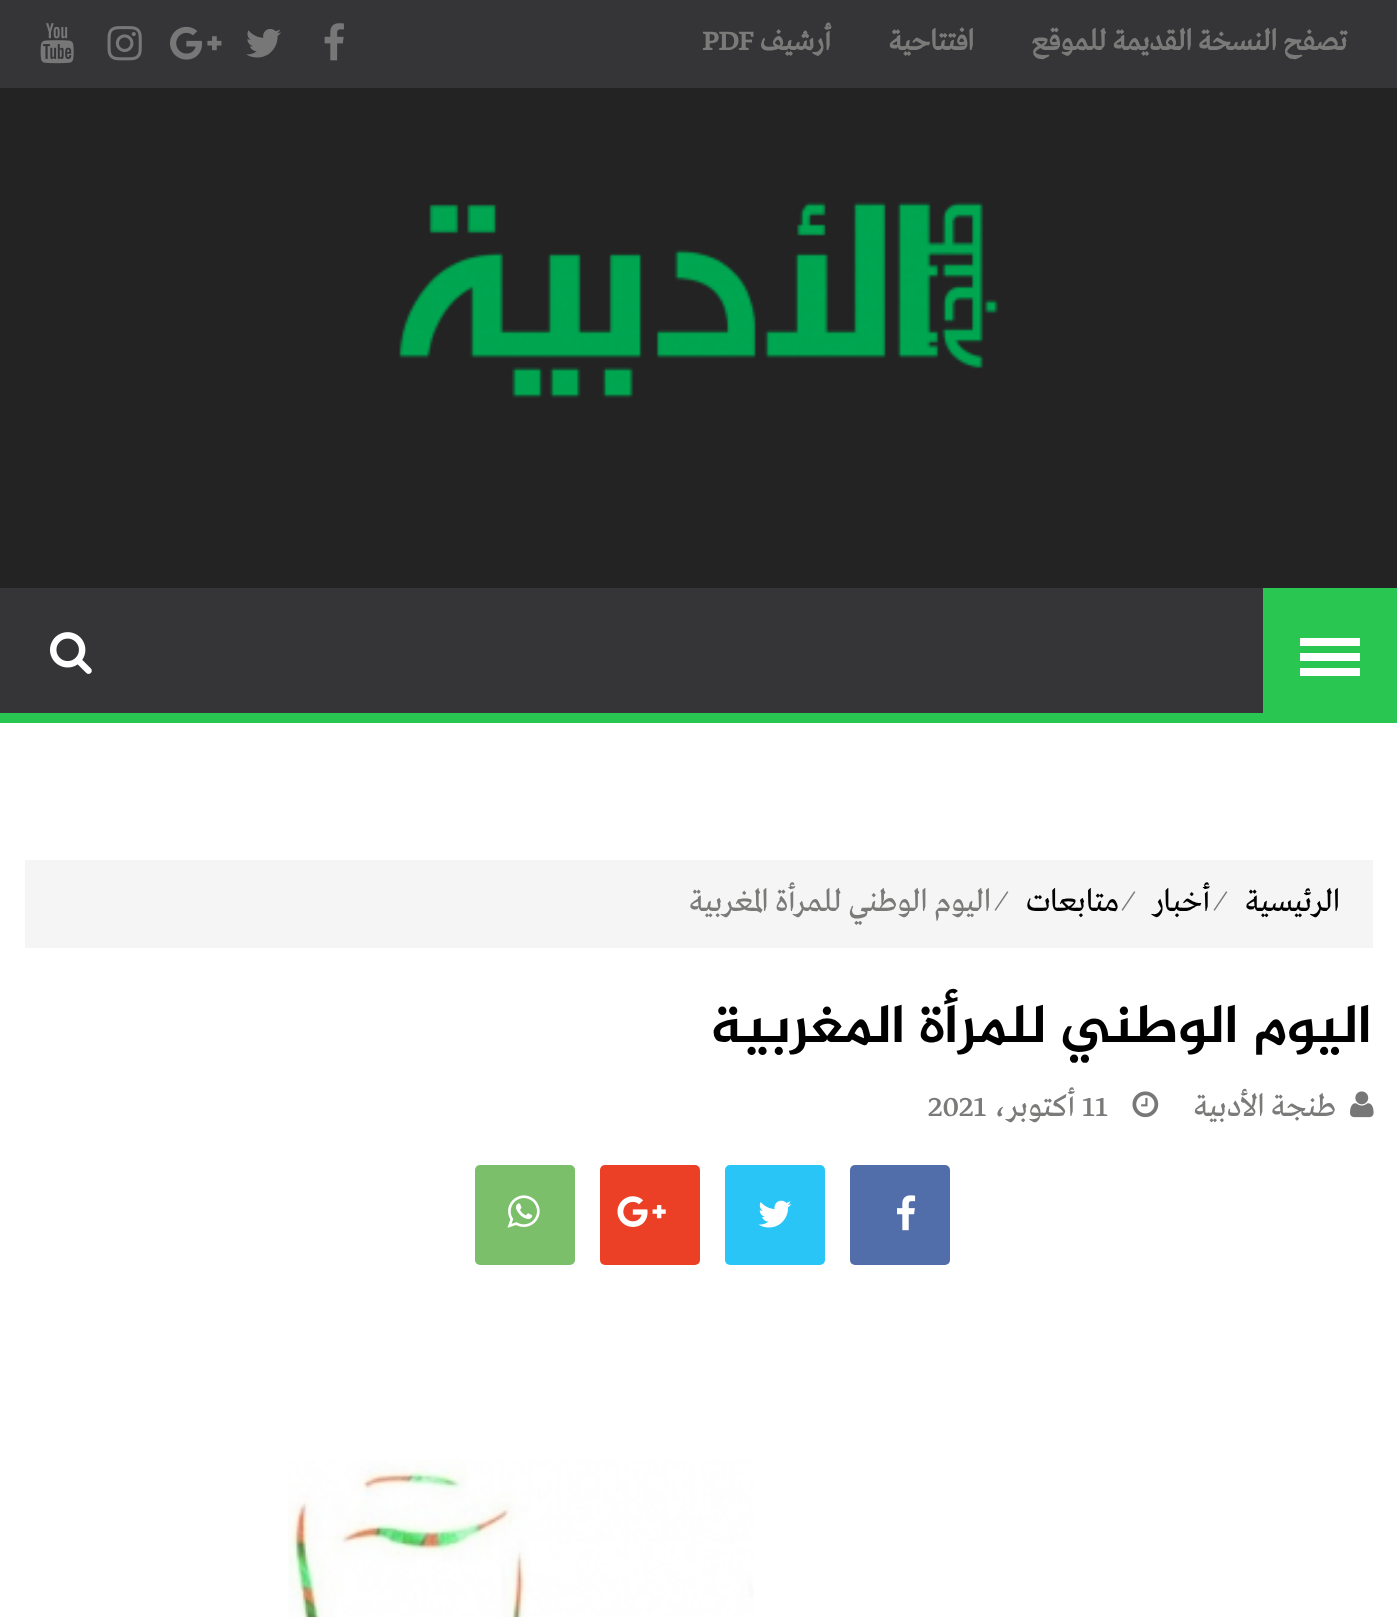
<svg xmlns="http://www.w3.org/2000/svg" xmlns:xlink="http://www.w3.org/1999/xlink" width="1397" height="1617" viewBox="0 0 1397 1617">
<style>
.cls-1{font:bold 30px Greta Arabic;direction:rtl;fill:#7a7a79}
.cls-2{font:bold 30px Greta Arabic;fill:#7a7a79}
.cls-3{font:32.5px Greta Arabic;direction:rtl;fill:#000000}
.cls-4{font:35px Greta Arabic;fill:#7a7a79}
.cls-5{font:32.5px Greta Arabic;direction:rtl;fill:#7a7a79}
.cls-6{font:bold 55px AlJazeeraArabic;direction:rtl;fill:#000000}
.cls-7{font:32.5px Greta Arabic;fill:#7a7a79}
</style>
<rect width="100%" height="100%" fill="#ffffff"/>
<rect fill="#353537" x="0" y="0" width="1397" height="88"/>
<image xlink:href="image0.png" x="324" y="23" width="20" height="38"/>
<image xlink:href="image1.png" x="246" y="29" width="35" height="29"/>
<image xlink:href="image2.png" x="170" y="26" width="52" height="34"/>
<image xlink:href="image3.png" x="107" y="26" width="35" height="35"/>
<image xlink:href="image4.png" x="40" y="23" width="34" height="41"/>
<rect fill="#232323" x="0" y="88" width="1397" height="500"/>
<image xlink:href="image5.png" x="399" y="202" width="600" height="197"/>
<rect fill="#353537" x="0" y="588" width="1263" height="125"/>
<rect fill="#29c651" x="0" y="713" width="1263" height="10"/>
<rect fill="#29c651" x="1263" y="588" width="134" height="135"/>
<rect fill="#ffffff" x="1300" y="638" width="60" height="8"/>
<rect fill="#ffffff" x="1300" y="653" width="60" height="8"/>
<rect fill="#ffffff" x="1300" y="668" width="60" height="8"/>
<image xlink:href="image6.png" x="50" y="632" width="42" height="42"/>
<rect fill="#f5f5f5" x="25" y="860" width="1348" height="88"/>
<image xlink:href="image7.png" x="1350" y="1091" width="24" height="27"/>
<image xlink:href="image8.png" x="1132" y="1091" width="27" height="27"/>
<rect fill="#516eab" x="850" y="1165" width="100" height="100" rx="5"/>
<image xlink:href="image9.png" x="897" y="1195" width="19" height="36"/>
<rect fill="#29c5f6" x="725" y="1165" width="100" height="100" rx="5"/>
<image xlink:href="image10.png" x="758" y="1200" width="34" height="28"/>
<rect fill="#eb4026" x="600" y="1165" width="100" height="100" rx="5"/>
<image xlink:href="image11.png" x="617" y="1196" width="49" height="31"/>
<rect fill="#7bbf6a" x="475" y="1165" width="100" height="100" rx="5"/>
<image xlink:href="image12.png" x="507" y="1195" width="33" height="33"/>
<image xlink:href="image13.png" x="288" y="1460" width="466" height="157"/>
<text class="cls-1" x="1347" y="50">تصفح النسخة القديمة للموقع</text>
<text class="cls-1" x="974" y="50">افتتاحية</text>
<text class="cls-1" x="831" y="50">أرشيف</text>
<text class="cls-2" x="702" y="50">PDF</text>
<text class="cls-3" x="1340" y="911">الرئيسية</text>
<text class="cls-4" x="1218" y="911">⁄</text>
<text class="cls-3" x="1210" y="911">أخبار</text>
<text class="cls-4" x="1126" y="911">⁄</text>
<text class="cls-3" x="1119" y="911">متابعات</text>
<text class="cls-4" x="999" y="911">⁄</text>
<text class="cls-5" x="991" y="911">اليوم الوطني للمرأة المغربية</text>
<text class="cls-6" x="1372" y="1042">اليوم الوطني للمرأة المغربية</text>
<text class="cls-5" x="1336" y="1116">طنجة الأدبية</text>
<text class="cls-7" x="1082" y="1116">11</text>
<text class="cls-5" x="1075" y="1116">أكتوبر،</text>
<text class="cls-7" x="928" y="1116">2021</text>
</svg>
